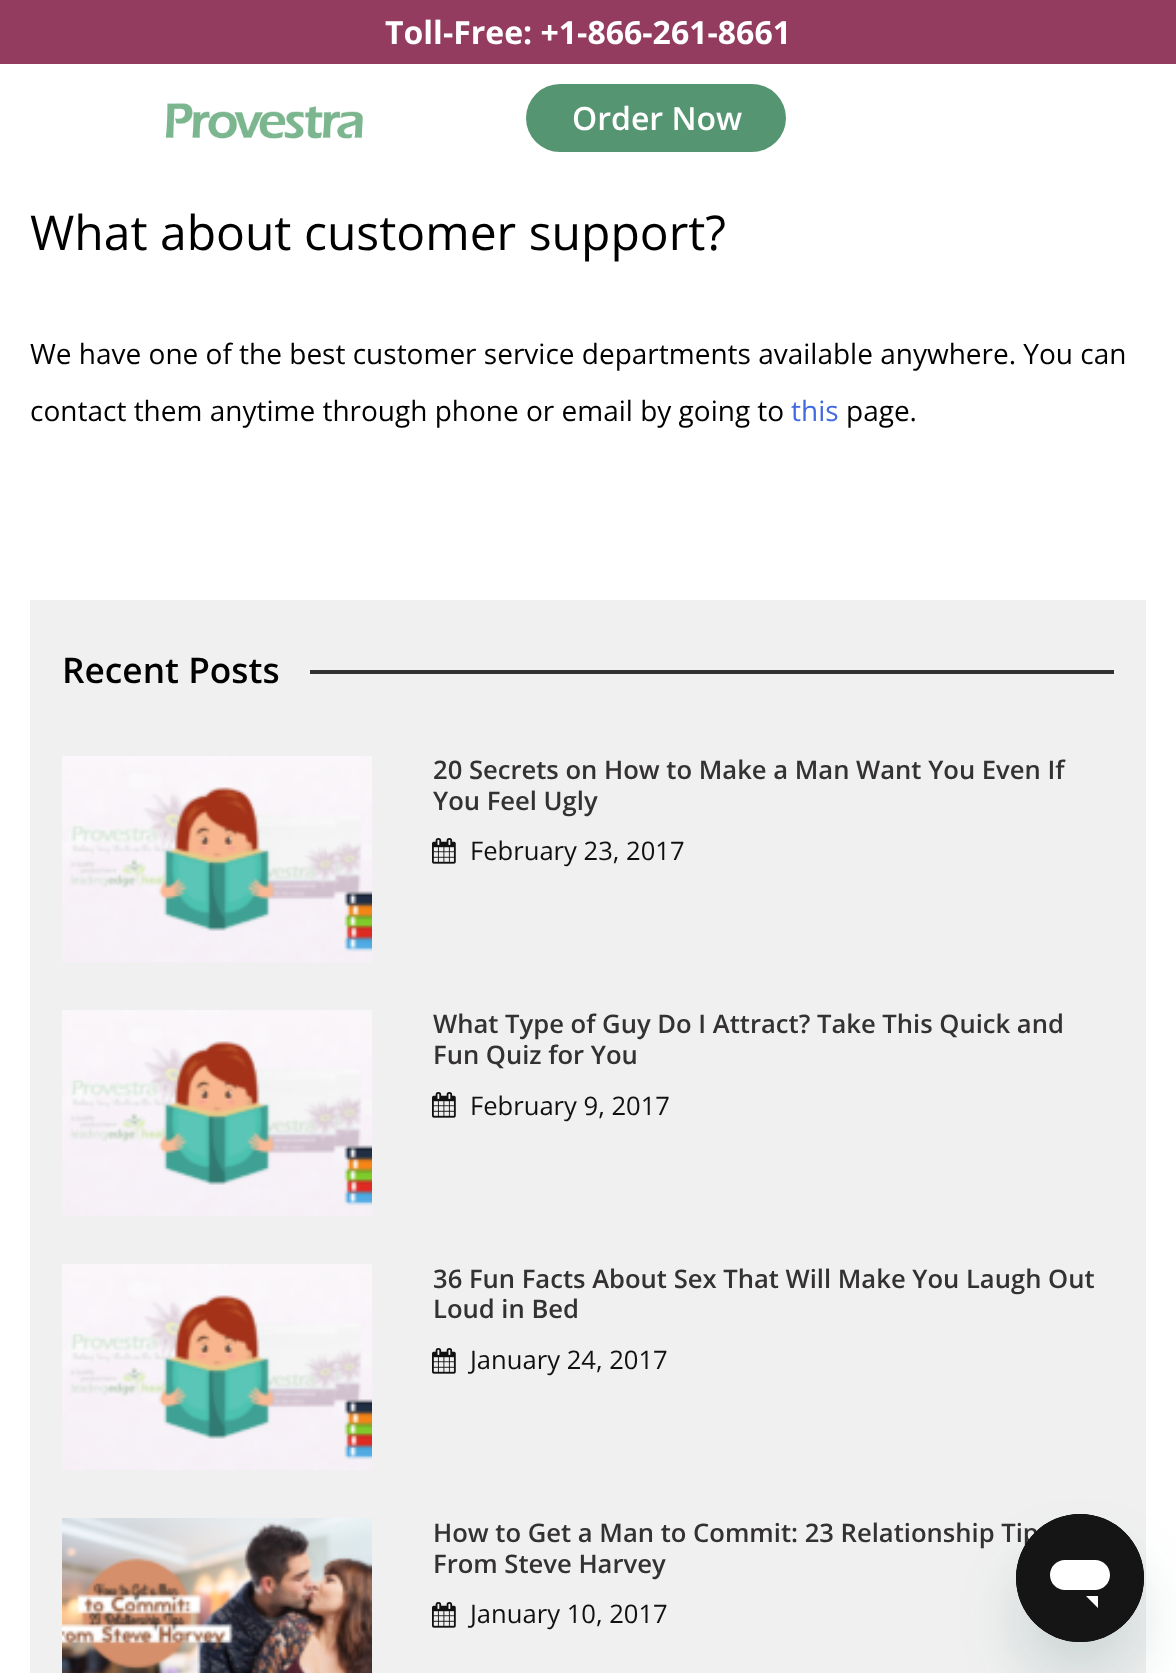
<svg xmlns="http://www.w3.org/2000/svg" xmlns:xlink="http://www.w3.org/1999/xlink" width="1176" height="1673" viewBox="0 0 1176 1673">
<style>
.cls-1{font:bold 32px Open Sans;fill:#ffffff}
.cls-2{font:600 32px Open Sans;fill:#ffffff}
.cls-3{font:48px Open Sans;fill:#000000}
.cls-4{font:28px Open Sans;fill:#000000}
.cls-5{font:28px Open Sans;fill:#4169e1}
.cls-6{font:600 35.25px Open Sans;fill:#000000}
.cls-7{font:600 25.6px Open Sans;fill:#333132}
.cls-8{font:25.6px Open Sans;fill:#111111}
</style>
<rect width="100%" height="100%" fill="#ffffff"/>
<rect fill="#933c5f" x="0" y="0" width="1176" height="64"/>
<image xlink:href="image0.png" x="165" y="103" width="198" height="36"/>
<rect fill="#559571" x="526" y="84" width="260" height="68" rx="34"/>
<rect fill="#f0f0f0" x="30" y="600" width="1116" height="1073"/>
<rect fill="#333132" x="310" y="670" width="804" height="4"/>
<image xlink:href="image1.png" x="62" y="756" width="310" height="206"/>
<image xlink:href="image2.png" x="432" y="838" width="24" height="26"/>
<image xlink:href="image1.png" x="62" y="1010" width="310" height="206"/>
<image xlink:href="image2.png" x="432" y="1092" width="24" height="26"/>
<image xlink:href="image1.png" x="62" y="1264" width="310" height="206"/>
<image xlink:href="image2.png" x="432" y="1348" width="24" height="26"/>
<image xlink:href="image3.png" x="62" y="1518" width="310" height="155"/>
<image xlink:href="image2.png" x="432" y="1602" width="24" height="26"/>
<rect fill="#17494d" fill-opacity="0.15" filter="blur(30px)" x="1016" y="1554" width="128" height="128" rx="64"/>
<text class="cls-1" x="385" y="44">Toll-Free: +1-866-261-8661</text>
<text class="cls-2" x="572" y="130">Order Now</text>
<text class="cls-3" x="30" y="250">What about customer support?</text>
<text class="cls-4" x="30" y="364">We have one of the best customer service departments available anywhere. You can</text>
<text class="cls-4" x="30" y="421">contact them anytime through phone or email by going to</text>
<text class="cls-5" x="791" y="421">this</text>
<text class="cls-4" x="846" y="421">page.</text>
<text class="cls-6" x="62" y="683">Recent Posts</text>
<text class="cls-7"><tspan x="433" y="779">20 Secrets on How to Make a Man Want You Even If</tspan><tspan x="433" y="810">You Feel Ugly</tspan></text>
<text class="cls-8" x="470" y="860">February 23, 2017</text>
<text class="cls-7"><tspan x="433" y="1033">What Type of Guy Do I Attract? Take This Quick and</tspan><tspan x="433" y="1064">Fun Quiz for You</tspan></text>
<text class="cls-8" x="470" y="1115">February 9, 2017</text>
<text class="cls-7"><tspan x="433" y="1288">36 Fun Facts About Sex That Will Make You Laugh Out</tspan><tspan x="433" y="1318">Loud in Bed</tspan></text>
<text class="cls-8" x="470" y="1369">January 24, 2017</text>
<text class="cls-7"><tspan x="433" y="1542">How to Get a Man to Commit: 23 Relationship Tip</tspan><tspan x="433" y="1573">From Steve Harvey</tspan></text>
<text class="cls-8" x="470" y="1623">January 10, 2017</text>
<image xlink:href="image4.png" x="1016" y="1514" width="128" height="128"/>
</svg>
